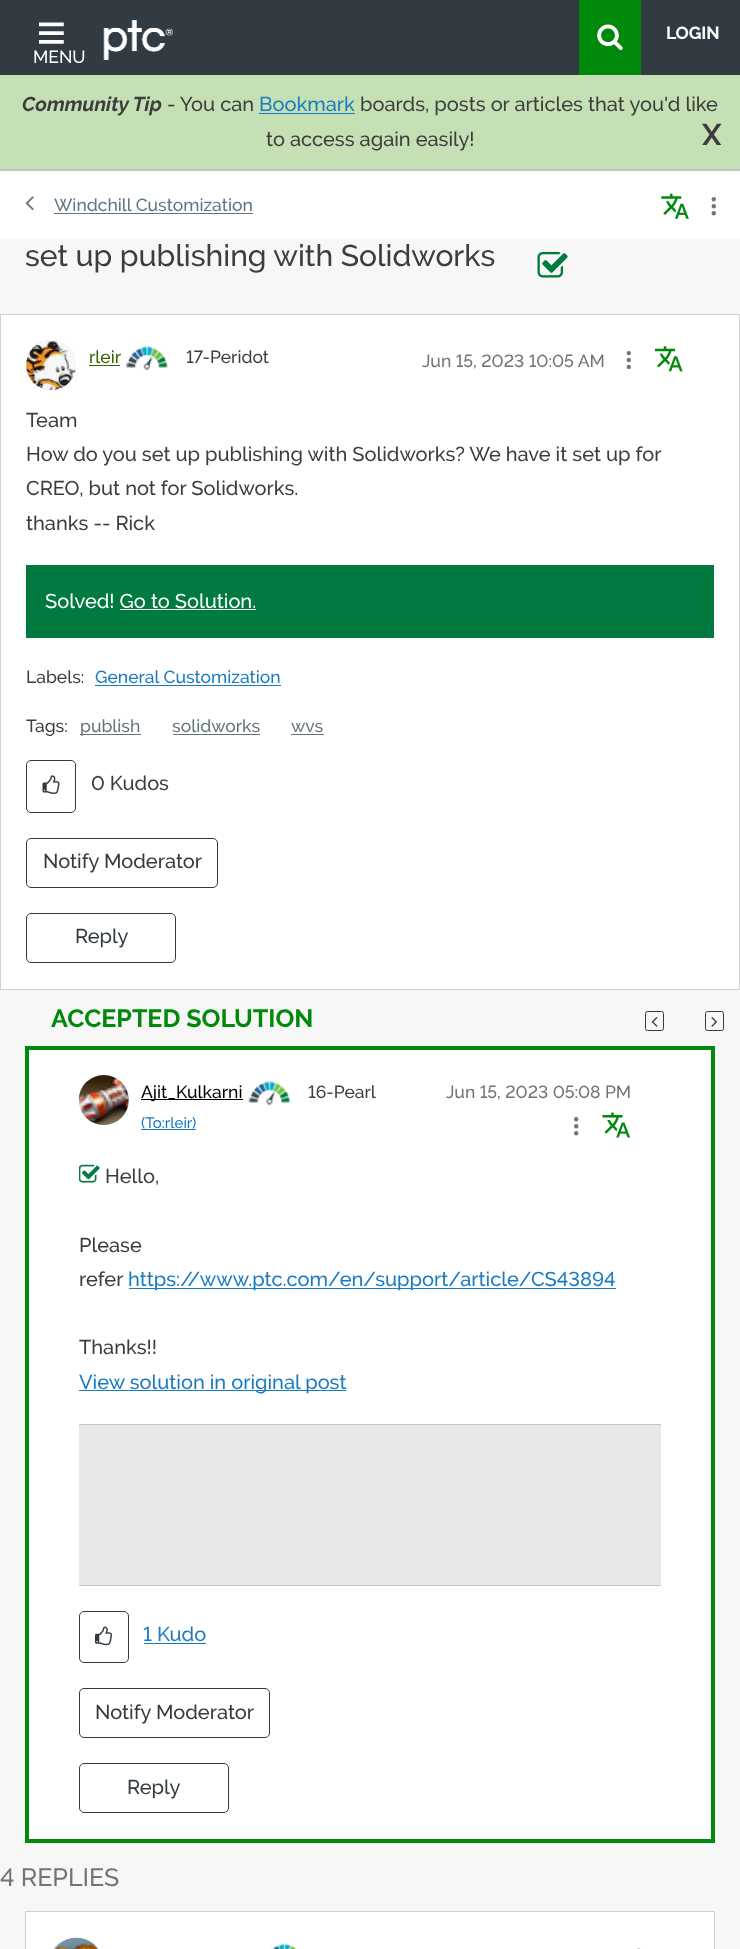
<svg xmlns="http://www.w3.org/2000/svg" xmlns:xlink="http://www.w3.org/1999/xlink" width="740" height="1949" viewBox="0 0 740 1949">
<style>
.cls-1{font:bold 17.5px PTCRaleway;fill:#ffffff}
.cls-2{font:500 17.5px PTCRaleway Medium;fill:#ffffff}
.cls-3{font:italic bold 20px PTCRaleway;fill:#3d3d3d}
.cls-4{font:500 20px PTCRaleway Medium;fill:#3d3d3d}
.cls-5{font:500 20px PTCRaleway Medium;fill:#197bc0}
.cls-6{font:bold 30px PTCRaleway;fill:#3d3d3d}
.cls-7{font:500 17.5px PTCRaleway Medium;fill:#617480}
.cls-8{font:500 30px PTCRaleway Medium;fill:#3d3d3d}
.cls-9{font:500 17.5px PTCRaleway Medium;fill:#336600}
.cls-10{font:500 17.5px PTCRaleway Medium;fill:#3d3d3d}
.cls-11{font:500 17.5px PTCRaleway Medium;fill:#747474}
.cls-12{font:500 20px PTCRaleway Medium;fill:#ffffff}
.cls-13{font:500 17.5px PTCRaleway Medium;fill:#197bc0}
.cls-14{font:500 20px PTCRaleway Medium;fill:#323b42}
.cls-15{font:bold 25px PTCRaleway;fill:#00890b}
.cls-16{font:500 17.5px PTCRaleway Medium;fill:#000000}
.cls-17{font:500 15px PTCRaleway Medium;fill:#197bc0}
.cls-18{font:500 25px PTCRaleway Medium;fill:#747474}
</style>
<rect width="100%" height="100%" fill="#f7f7f7"/>
<rect fill="#323b42" x="0" y="0" width="740" height="75"/>
<rect fill="#00890b" x="579" y="0" width="62" height="75"/>
<image xlink:href="image0.png" x="597" y="24" width="26" height="26"/>
<image xlink:href="image1.png" x="39" y="22" width="25" height="22"/>
<image xlink:href="image2.png" x="103" y="20" width="70" height="40"/>
<rect fill="#c5e0b4" x="0" y="75" width="740" height="94"/>
<rect fill="#197bc0" x="259" y="113" width="96" height="1"/>
<rect fill="#ffffff" x="0" y="171" width="740" height="68"/>
<rect fill="#c4c4c4" x="0" y="169" width="740" height="2"/>
<image xlink:href="image3.png" x="25" y="196" width="9" height="15"/>
<rect fill="#617480" x="54" y="213" width="199" height="1"/>
<image xlink:href="image4.png" x="661" y="193" width="28" height="26"/>
<circle fill="#747474" cx="713.8" cy="199.3" r="2.2"/>
<circle fill="#747474" cx="713.8" cy="206.2" r="2.2"/>
<circle fill="#747474" cx="713.8" cy="213.2" r="2.2"/>
<image xlink:href="image5.png" x="537" y="251" width="31" height="27"/>
<rect fill="#ffffff" stroke="#d1d1d1" x="0.5" y="314.5" width="739" height="675"/>
<rect fill="#c4c4c4" filter="blur(0.5px)" x="26" y="340" width="50" height="50" rx="25"/>
<image xlink:href="image6.png" x="26" y="340" width="50" height="50"/>
<rect fill="#336600" x="89" y="365" width="31" height="1"/>
<image xlink:href="image7.png" x="126" y="346" width="42" height="25"/>
<circle fill="#747474" cx="628.8" cy="353.1" r="2.2"/>
<circle fill="#747474" cx="628.8" cy="360" r="2.2"/>
<circle fill="#747474" cx="628.8" cy="366.9" r="2.2"/>
<image xlink:href="image8.png" x="655" y="346" width="28" height="26"/>
<rect fill="#007a3e" x="26" y="565" width="688" height="73"/>
<rect fill="#ffffff" x="120" y="609" width="136" height="1"/>
<rect fill="#197bc0" x="95" y="685" width="186" height="1"/>
<rect fill="#617480" x="80" y="734" width="61" height="1"/>
<rect fill="#617480" x="173" y="734" width="87" height="1"/>
<rect fill="#617480" x="291" y="734" width="33" height="1"/>
<rect fill="none" stroke="#323b42" x="26.5" y="760.5" width="49" height="52" rx="4.5"/>
<image xlink:href="image9.png" x="42" y="775" width="18" height="19"/>
<rect fill="none" stroke="#323b42" x="26.5" y="838.5" width="191" height="49" rx="4.5"/>
<rect fill="none" stroke="#323b42" x="26.5" y="913.5" width="149" height="49" rx="4.5"/>
<rect fill="none" stroke="#323b42" x="645.5" y="1011.5" width="18" height="19" rx="2"/>
<image xlink:href="image10.png" x="651" y="1017" width="7" height="10"/>
<rect fill="none" stroke="#323b42" x="705.5" y="1011.5" width="18" height="19" rx="2"/>
<image xlink:href="image11.png" x="711" y="1017" width="6" height="10"/>
<rect fill="#ffffff" stroke="#00890b" stroke-width="4" x="27" y="1048" width="686" height="793"/>
<rect fill="#c4c4c4" filter="blur(0.5px)" x="79" y="1075" width="50" height="50" rx="25"/>
<image xlink:href="image12.png" x="78" y="1075" width="51" height="50"/>
<rect fill="#000000" x="141" y="1099" width="102" height="1"/>
<image xlink:href="image13.png" x="248" y="1081" width="43" height="25"/>
<rect fill="#197bc0" x="141" y="1129" width="55" height="1"/>
<circle fill="#747474" cx="576.2" cy="1119.3" r="2.2"/>
<circle fill="#747474" cx="576.2" cy="1126.2" r="2.2"/>
<circle fill="#747474" cx="576.2" cy="1133.2" r="2.2"/>
<image xlink:href="image14.png" x="602" y="1112" width="29" height="26"/>
<image xlink:href="image15.png" x="79" y="1164" width="21" height="19"/>
<rect fill="#197bc0" x="129" y="1288" width="487" height="1"/>
<rect fill="#197bc0" x="79" y="1390" width="267" height="1"/>
<rect fill="#e8e8e8" x="79" y="1425" width="582" height="160"/>
<rect fill="#c4c4c4" x="79" y="1424" width="582" height="1"/>
<rect fill="#c4c4c4" x="79" y="1585" width="582" height="1"/>
<rect fill="none" stroke="#323b42" x="79.5" y="1611.5" width="49" height="51" rx="4.5"/>
<image xlink:href="image16.png" x="95" y="1626" width="18" height="20"/>
<rect fill="#197bc0" x="144" y="1643" width="62" height="1"/>
<rect fill="none" stroke="#323b42" x="79.5" y="1688.5" width="190" height="49" rx="4.5"/>
<rect fill="none" stroke="#323b42" x="79.5" y="1763.5" width="149" height="49" rx="4.5"/>
<rect fill="#ffffff" stroke="#d1d1d1" x="25.5" y="1911.5" width="689" height="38"/>
<rect fill="#c4c4c4" filter="blur(0.5px)" x="51" y="1938" width="50" height="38" rx="25"/>
<image xlink:href="image17.png" x="55" y="1937" width="43" height="12"/>
<image xlink:href="image18.png" x="271" y="1943" width="27" height="6"/>
<circle fill="#747474" cx="638.8" cy="1950.6" r="2.2"/>
<text class="cls-1" x="666" y="39">LOGIN</text>
<text class="cls-2" x="33" y="63">MENU</text>
<text class="cls-3" x="22" y="111">Community Tip</text>
<text class="cls-4" x="167" y="111">- You can</text>
<text class="cls-5" x="259" y="111">Bookmark</text>
<text class="cls-4" x="360" y="111">boards, posts or articles that you'd like</text>
<text class="cls-4" x="266" y="146">to access again easily!</text>
<text class="cls-6" x="702" y="145">X</text>
<text class="cls-7" x="54" y="211">Windchill Customization</text>
<text class="cls-8" x="25" y="266">set up publishing with Solidworks</text>
<text class="cls-9" x="89" y="363">rleir</text>
<text class="cls-10" x="186" y="363">17-Peridot</text>
<text class="cls-11" x="422" y="367">Jun 15, 2023 10:05 AM</text>
<text class="cls-4"><tspan x="26" y="427">Team</tspan><tspan x="26" y="461">How do you set up publishing with Solidworks? We have it set up for</tspan><tspan x="26" y="495">CREO, but not for Solidworks.</tspan><tspan x="26" y="530">thanks -- Rick</tspan></text>
<text class="cls-12" x="45" y="608">Solved! Go to Solution.</text>
<text class="cls-10" x="26" y="683">Labels:</text>
<text class="cls-13" x="95" y="683">General Customization</text>
<text class="cls-10" x="26" y="732">Tags:</text>
<text class="cls-7" x="80" y="732">publish</text>
<text class="cls-7" x="172" y="732">solidworks</text>
<text class="cls-7" x="291" y="732">wvs</text>
<text class="cls-4" x="91" y="790">0 Kudos</text>
<text class="cls-14" x="43" y="868">Notify Moderator</text>
<text class="cls-14" x="75" y="943">Reply</text>
<text class="cls-15" x="51" y="1027">ACCEPTED SOLUTION</text>
<text class="cls-16" x="141" y="1098">Ajit_Kulkarni</text>
<text class="cls-10" x="308" y="1098">16-Pearl</text>
<text class="cls-17" x="141" y="1128">(To:rleir)</text>
<text class="cls-11" x="446" y="1098">Jun 15, 2023 05:08 PM</text>
<text class="cls-4" x="105" y="1183">Hello,</text>
<text class="cls-4"><tspan x="79" y="1252">Please</tspan><tspan x="79" y="1286">refer</tspan></text>
<text class="cls-5" x="128" y="1286">https://www.ptc.com/en/support/article/CS43894</text>
<text class="cls-4" x="79" y="1354">Thanks!!</text>
<text class="cls-5" x="79" y="1389">View solution in original post</text>
<text class="cls-5" x="143" y="1641">1 Kudo</text>
<text class="cls-14" x="95" y="1719">Notify Moderator</text>
<text class="cls-14" x="127" y="1794">Reply</text>
<text class="cls-18" x="0" y="1886">4 REPLIES</text>
</svg>
